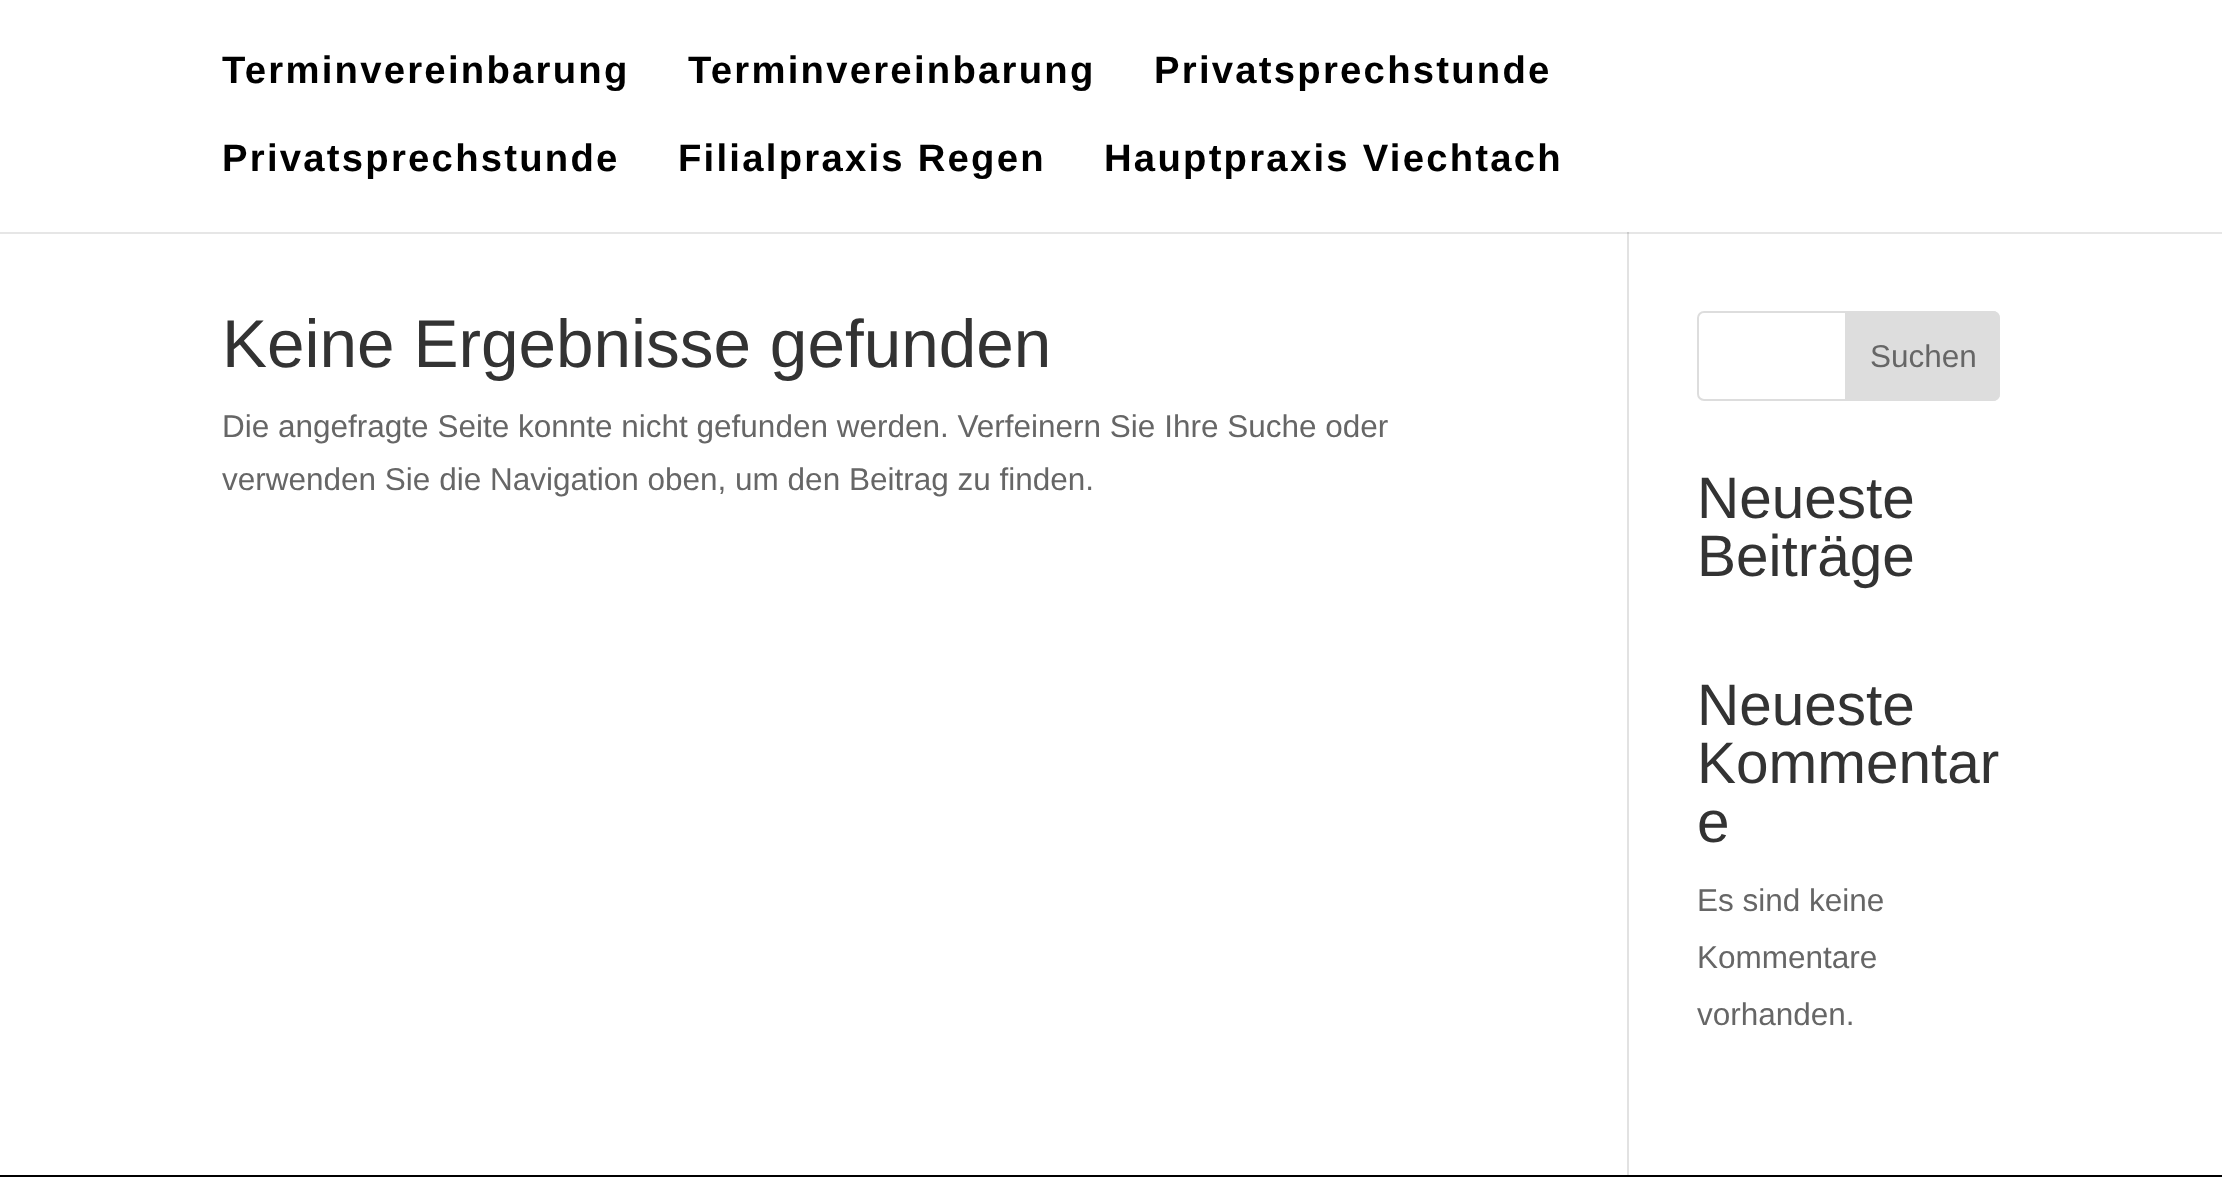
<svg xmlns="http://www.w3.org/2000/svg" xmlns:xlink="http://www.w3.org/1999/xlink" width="2222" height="1195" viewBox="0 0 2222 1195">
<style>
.cls-1{font:bold 38.25px Liberation Sans;letter-spacing:2.25px;fill:#000000}
.cls-2{font:67.5px Liberation Sans;fill:#333333}
.cls-3{font:31.5px Liberation Sans;fill:#666666}
.cls-4{font:58.5px Liberation Sans;fill:#333333}
</style>
<rect width="100%" height="100%" fill="#ffffff"/>
<rect fill="#e6e6e6" x="0" y="232" width="2222" height="2"/>
<rect fill="#e2e2e2" x="1627" y="234" width="2" height="941"/>
<rect fill="#cbcbcb" x="1627" y="232" width="2" height="2"/>
<rect fill="none" stroke="#dddddd" stroke-width="2" x="1698" y="312" width="301" height="88" rx="6"/>
<path fill="#dddddd" stroke="#dddddd" stroke-width="2" d="M1846 312H1993C1996.5 312 1999 314.5 1999 318V394C1999 397.5 1996.5 400 1993 400H1846Z"/>
<rect fill="#000000" x="0" y="1175" width="2222" height="2"/>
<text class="cls-1" x="222" y="83">Terminvereinbarung</text>
<text class="cls-1" x="688" y="83">Terminvereinbarung</text>
<text class="cls-1" x="1154" y="83">Privatsprechstunde</text>
<text class="cls-1" x="222" y="171">Privatsprechstunde</text>
<text class="cls-1" x="678" y="171">Filialpraxis Regen</text>
<text class="cls-1" x="1104" y="171">Hauptpraxis Viechtach</text>
<text class="cls-2" x="222" y="367">Keine Ergebnisse gefunden</text>
<text class="cls-3"><tspan x="222" y="437">Die angefragte Seite konnte nicht gefunden werden. Verfeinern Sie Ihre Suche oder</tspan><tspan x="222" y="490">verwenden Sie die Navigation oben, um den Beitrag zu finden.</tspan></text>
<text class="cls-3" x="1870" y="367">Suchen</text>
<text class="cls-4"><tspan x="1697" y="518">Neueste</tspan><tspan x="1697" y="576">Beiträge</tspan></text>
<text class="cls-4"><tspan x="1697" y="725">Neueste</tspan><tspan x="1697" y="783">Kommentar</tspan><tspan x="1697" y="842">e</tspan></text>
<text class="cls-3"><tspan x="1697" y="911">Es sind keine</tspan><tspan x="1697" y="968">Kommentare</tspan><tspan x="1697" y="1025">vorhanden.</tspan></text>
</svg>
